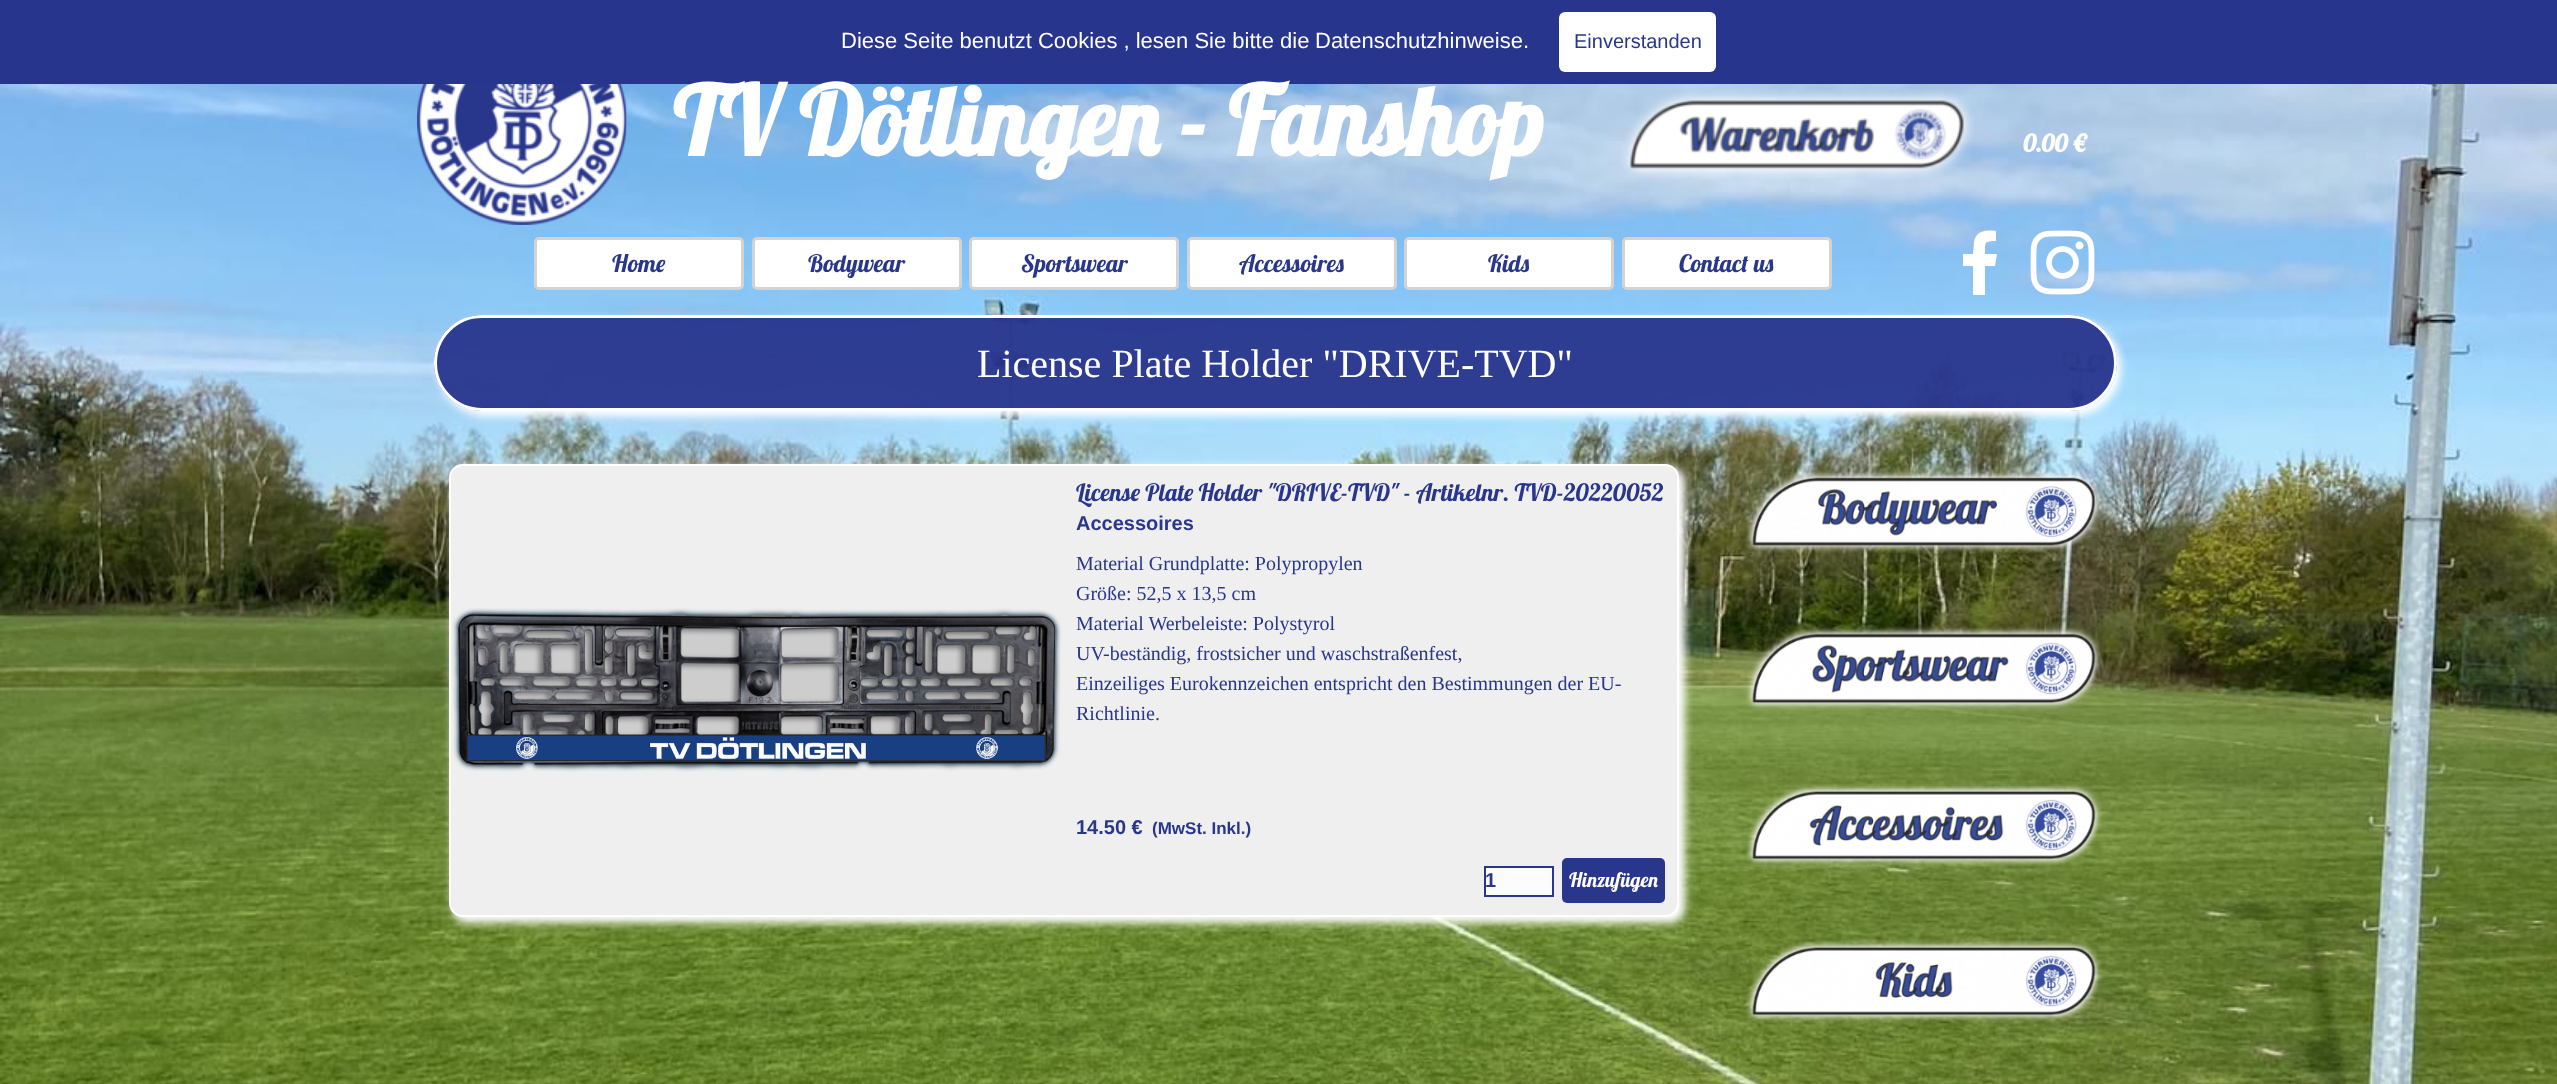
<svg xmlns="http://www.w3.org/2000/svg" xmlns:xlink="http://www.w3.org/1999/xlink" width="2557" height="1084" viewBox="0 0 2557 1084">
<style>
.cls-1{font:22px Liberation Sans;fill:#ffffff}
.cls-2{font:20px Liberation Sans;fill:#28368c}
.cls-3{font:bold 96px Lobster;fill:#ffffff}
.cls-4{font:bold 24px Lobster;fill:#ffffff}
.cls-5{font:24px Lobster;fill:#28368c}
.cls-6{font:40px Liberation Serif;fill:#ffffff}
.cls-7{font:bold 20px Liberation Sans;fill:#28368c}
.cls-8{font:20px Liberation Serif;fill:#28368c}
.cls-9{font:bold 17px Liberation Sans;fill:#28368c}
.cls-10{font:20px Lobster;fill:#ffffff}
</style>
<defs>
<clipPath id="clip1"><path d="M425 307H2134V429H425ZM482 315H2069C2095.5 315 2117 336.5 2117 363C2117 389.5 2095.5 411 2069 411H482C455.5 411 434 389.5 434 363C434 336.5 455.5 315 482 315Z" clip-rule="evenodd"/></clipPath>
</defs>
<rect width="100%" height="100%" fill="#ffffff"/>
<rect fill="#28358c" x="0" y="0" width="2557" height="84"/>
<rect fill="#ffffff" x="1559" y="12" width="157" height="60" rx="6"/>
<image xlink:href="image0.png" x="0" y="84" width="2557" height="1000"/>
<image xlink:href="image1.png" x="417" y="84" width="210" height="141"/>
<image xlink:href="image2.png" x="1620" y="89" width="354" height="90"/>
<rect fill="#ffffff" stroke="#d3d3d3" stroke-width="3" x="535.5" y="238.5" width="207" height="50" rx="3.5"/>
<rect fill="#ffffff" stroke="#d3d3d3" stroke-width="3" x="753.5" y="238.5" width="207" height="50" rx="3.5"/>
<rect fill="#ffffff" stroke="#d3d3d3" stroke-width="3" x="970.5" y="238.5" width="207" height="50" rx="3.5"/>
<rect fill="#ffffff" stroke="#d3d3d3" stroke-width="3" x="1188.5" y="238.5" width="207" height="50" rx="3.5"/>
<rect fill="#ffffff" stroke="#d3d3d3" stroke-width="3" x="1405.5" y="238.5" width="207" height="50" rx="3.5"/>
<rect fill="#ffffff" stroke="#d3d3d3" stroke-width="3" x="1623.5" y="238.5" width="207" height="50" rx="3.5"/>
<path fill="#ffffff" d="M1985 295V266H1995L1997 254H1985C1985 242 1984 241 1996 241V231C1987 230 1976 230 1974 242L1973 254H1963V266H1973V295Z"/>
<image xlink:href="image3.png" x="2030" y="230" width="65" height="65"/>
<rect fill="#28358c" fill-opacity="0.95" x="434" y="315" width="1683" height="96" rx="48"/>
<g clip-path="url(#clip1)">
<rect fill="#ffffff" filter="blur(4px)" x="438" y="320" width="1683" height="96" rx="48"/>
</g>
<rect fill="none" stroke="#ffffff" stroke-width="3" x="435.5" y="316.5" width="1680" height="93" rx="46.5"/>
<rect fill="#ffffff" filter="blur(4px)" x="452" y="467" width="1233" height="456" rx="15"/>
<rect fill="#efefef" stroke="#ffffff" stroke-width="2" x="450" y="465" width="1228" height="451" rx="13"/>
<image xlink:href="image4.png" x="452" y="608" width="609" height="164"/>
<rect fill="#fcfcfc" stroke="#28368c" stroke-width="2" x="1485" y="867" width="68" height="29"/>
<rect fill="#28368c" x="1562" y="858" width="103" height="45" rx="5"/>
<image xlink:href="image5.png" x="1745" y="470" width="357" height="83"/>
<image xlink:href="image6.png" x="1745" y="626" width="358" height="85"/>
<image xlink:href="image7.png" x="1745" y="784" width="358" height="83"/>
<image xlink:href="image8.png" x="1745" y="940" width="358" height="83"/>
<text class="cls-1" x="841" y="48">Diese Seite benutzt Cookies , lesen Sie bitte die</text>
<text class="cls-1" x="1315" y="48">Datenschutzhinweise.</text>
<text class="cls-2" x="1574" y="48">Einverstanden</text>
<text class="cls-3" x="673" y="156">TV Dötlingen - Fanshop</text>
<text class="cls-4" x="2023" y="152">0.00 €</text>
<text class="cls-5" x="612" y="272">Home</text>
<text class="cls-5" x="808" y="272">Bodywear</text>
<text class="cls-5" x="1021" y="272">Sportswear</text>
<text class="cls-5" x="1239" y="272">Accessoires</text>
<text class="cls-5" x="1488" y="272">Kids</text>
<text class="cls-5" x="1679" y="272">Contact us</text>
<text class="cls-6" x="977" y="377">License Plate Holder "DRIVE-TVD"</text>
<text class="cls-5" x="1076" y="501">License Plate Holder "DRIVE-TVD" - Artikelnr. TVD-20220052</text>
<text class="cls-7" x="1076" y="530">Accessoires</text>
<text class="cls-8"><tspan x="1076" y="570">Material Grundplatte: Polypropylen</tspan><tspan x="1076" y="600">Größe: 52,5 x 13,5 cm</tspan><tspan x="1076" y="630">Material Werbeleiste: Polystyrol</tspan><tspan x="1076" y="660">UV-beständig, frostsicher und waschstraßenfest,</tspan><tspan x="1076" y="690">Einzeiliges Eurokennzeichen entspricht den Bestimmungen der EU-</tspan><tspan x="1076" y="720">Richtlinie.</tspan></text>
<text class="cls-7" x="1076" y="834">14.50 €</text>
<text class="cls-9" x="1152" y="834">(MwSt. Inkl.)</text>
<text class="cls-7" x="1485" y="887">1</text>
<text class="cls-10" x="1569" y="887">Hinzufügen</text>
</svg>
